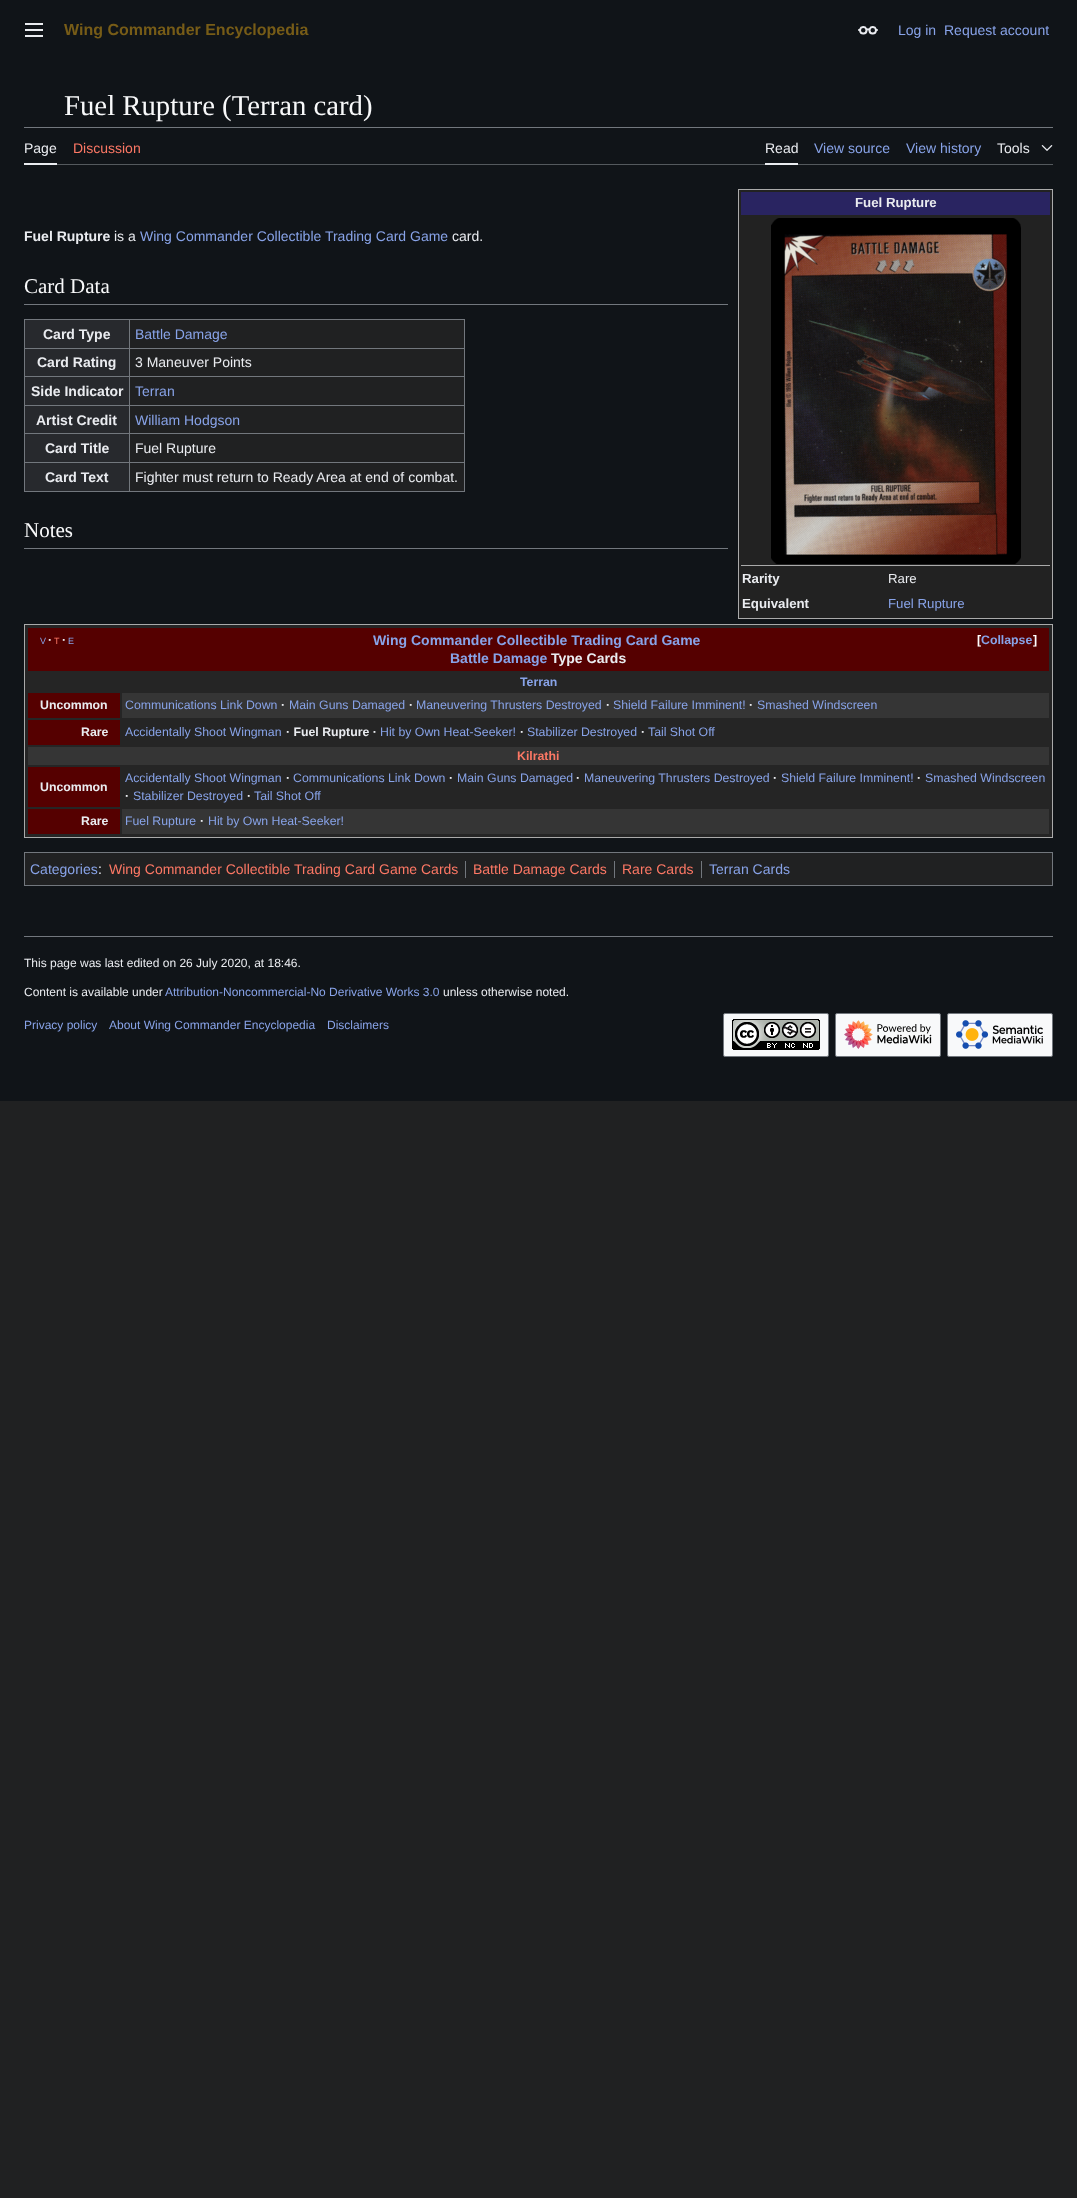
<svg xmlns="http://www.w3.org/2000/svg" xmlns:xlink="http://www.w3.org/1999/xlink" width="1077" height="2198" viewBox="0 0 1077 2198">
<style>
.cls-1{font:bold 16px Liberation Sans;fill:#775c17}
.cls-2{font:14px Liberation Sans;fill:#88a3e8}
.cls-3{font:28.75px Liberation Serif;fill:#f8f9fa}
.cls-4{font:14px Liberation Sans;fill:#eaecf0}
.cls-5{font:14px Liberation Sans;fill:#fd7865}
.cls-6{font:bold 14px Liberation Sans;fill:#eaecf0}
.cls-7{font:bold 13.25px Liberation Sans;fill:#eaecf0}
.cls-8{font:13.25px Liberation Sans;fill:#eaecf0}
.cls-9{font:13.25px Liberation Sans;fill:#88a3e8}
.cls-10{font:21px Liberation Serif;fill:#f8f9fa}
.cls-11{font:9px Liberation Sans;fill:#88a3e8}
.cls-12{font:bold 12.3px Liberation Sans;fill:#eaecf0}
.cls-13{font:9px Liberation Sans;fill:#fd7865}
.cls-14{font:bold 14px Liberation Sans;fill:#88a3e8}
.cls-15{font:bold 12.3px Liberation Sans;fill:#ffffff}
.cls-16{font:bold 12.3px Liberation Sans;fill:#88a3e8}
.cls-17{font:12.3px Liberation Sans;fill:#88a3e8}
.cls-18{font:bold 12.3px Liberation Sans;fill:#fd7865}
.cls-19{font:12px Liberation Sans;fill:#eaecf0}
.cls-20{font:12px Liberation Sans;fill:#88a3e8}
</style>
<rect width="100%" height="100%" fill="#202122"/>
<rect fill="#101418" x="0" y="0" width="1077" height="1101"/>
<image xlink:href="image0.png" x="25" y="23" width="18" height="14"/>
<image xlink:href="image1.png" x="858" y="26" width="20" height="9"/>
<rect fill="#72777d" x="24" y="127" width="1029" height="1"/>
<rect fill="#54595d" x="57" y="164" width="996" height="1"/>
<rect fill="#eaecf0" x="24" y="163" width="33" height="2"/>
<rect fill="#eaecf0" x="765" y="163" width="33" height="2"/>
<image xlink:href="image2.png" x="1041" y="145" width="12" height="6"/>
<rect fill="#222222" stroke="#aaaaaa" x="738.5" y="189.5" width="314" height="429"/>
<rect fill="#292461" x="741" y="192" width="309" height="23"/>
<rect fill="#aaaaaa" x="741" y="565" width="309" height="1"/>
<image xlink:href="image3.png" x="771" y="218" width="250" height="346"/>
<rect fill="#72777d" x="24" y="304" width="704" height="1"/>
<rect fill="#202122" x="130" y="320" width="334" height="171"/>
<rect fill="#72777d" x="24" y="319" width="441" height="1"/>
<rect fill="#72777d" x="464" y="319" width="1" height="173"/>
<rect fill="#72777d" x="24" y="491" width="441" height="1"/>
<rect fill="#72777d" x="24" y="319" width="1" height="173"/>
<rect fill="#27292d" x="25" y="320" width="104" height="28"/>
<rect fill="#72777d" x="129" y="348" width="336" height="1"/>
<rect fill="#72777d" x="129" y="376" width="336" height="1"/>
<rect fill="#72777d" x="129" y="405" width="336" height="1"/>
<rect fill="#72777d" x="129" y="433" width="336" height="1"/>
<rect fill="#72777d" x="129" y="462" width="336" height="1"/>
<rect fill="#72777d" x="129" y="462" width="1" height="30"/>
<rect fill="#72777d" x="24" y="462" width="106" height="1"/>
<rect fill="#72777d" x="129" y="433" width="1" height="30"/>
<rect fill="#72777d" x="24" y="433" width="106" height="1"/>
<rect fill="#72777d" x="129" y="405" width="1" height="29"/>
<rect fill="#72777d" x="24" y="405" width="106" height="1"/>
<rect fill="#72777d" x="129" y="376" width="1" height="30"/>
<rect fill="#72777d" x="24" y="376" width="106" height="1"/>
<rect fill="#72777d" x="129" y="348" width="1" height="29"/>
<rect fill="#72777d" x="24" y="348" width="106" height="1"/>
<rect fill="#72777d" x="129" y="319" width="1" height="30"/>
<rect fill="#27292d" x="25" y="349" width="104" height="27"/>
<rect fill="#27292d" x="25" y="377" width="104" height="28"/>
<rect fill="#27292d" x="25" y="406" width="104" height="27"/>
<rect fill="#27292d" x="25" y="434" width="104" height="28"/>
<rect fill="#27292d" x="25" y="463" width="104" height="28"/>
<rect fill="#72777d" x="24" y="548" width="704" height="1"/>
<rect fill="#252525" stroke="#aaaaaa" x="24.5" y="624.5" width="1028" height="213"/>
<rect fill="#550000" x="28" y="628" width="1021" height="43"/>
<rect fill="#550000" x="28" y="693" width="92" height="25"/>
<rect fill="#353535" x="122" y="693" width="927" height="25"/>
<rect fill="#550000" x="28" y="720" width="92" height="25"/>
<rect fill="#353535" x="28" y="747" width="1021" height="18"/>
<rect fill="#550000" x="28" y="767" width="92" height="40"/>
<rect fill="#550000" x="28" y="809" width="92" height="25"/>
<rect fill="#353535" x="122" y="809" width="927" height="25"/>
<rect fill="#202122" stroke="#72777d" x="24.5" y="852.5" width="1028" height="33"/>
<rect fill="#72777d" x="465" y="861" width="1" height="17"/>
<rect fill="#72777d" x="614" y="861" width="1" height="17"/>
<rect fill="#72777d" x="701" y="861" width="1" height="17"/>
<rect fill="#72777d" x="24" y="936" width="1029" height="1"/>
<rect fill="#f8f9fa" stroke="#72777d" x="723.5" y="1013.5" width="105" height="43" rx="1.5"/>
<image xlink:href="image4.png" x="732" y="1019" width="88" height="31"/>
<rect fill="#f8f9fa" stroke="#72777d" x="835.5" y="1013.5" width="105" height="43" rx="1.5"/>
<image xlink:href="image5.png" x="844" y="1020" width="88" height="29"/>
<rect fill="#f8f9fa" stroke="#72777d" x="947.5" y="1013.5" width="105" height="43" rx="1.5"/>
<image xlink:href="image6.png" x="956" y="1020" width="87" height="29"/>
<text class="cls-1" x="64" y="35">Wing Commander Encyclopedia</text>
<text class="cls-2" x="898" y="35">Log in</text>
<text class="cls-2" x="944" y="35">Request account</text>
<text class="cls-3" x="64" y="115">Fuel Rupture (Terran card)</text>
<text class="cls-4" x="24" y="153">Page</text>
<text class="cls-5" x="73" y="153">Discussion</text>
<text class="cls-4" x="765" y="153">Read</text>
<text class="cls-2" x="814" y="153">View source</text>
<text class="cls-2" x="906" y="153">View history</text>
<text class="cls-4" x="997" y="153">Tools</text>
<text class="cls-6" x="24" y="241">Fuel Rupture</text>
<text class="cls-4" x="114" y="241">is a</text>
<text class="cls-2" x="140" y="241">Wing Commander Collectible Trading Card Game</text>
<text class="cls-4" x="452" y="241">card.</text>
<text class="cls-7" x="855" y="207">Fuel Rupture</text>
<text class="cls-7" x="742" y="583">Rarity</text>
<text class="cls-8" x="888" y="583">Rare</text>
<text class="cls-7" x="742" y="608">Equivalent</text>
<text class="cls-9" x="888" y="608">Fuel Rupture</text>
<text class="cls-10" x="24" y="293">Card Data</text>
<text class="cls-6" x="43" y="339">Card Type</text>
<text class="cls-2" x="135" y="339">Battle Damage</text>
<text class="cls-6" x="37" y="367">Card Rating</text>
<text class="cls-4" x="135" y="367">3 Maneuver Points</text>
<text class="cls-6" x="31" y="396">Side Indicator</text>
<text class="cls-2" x="135" y="396">Terran</text>
<text class="cls-6" x="36" y="425">Artist Credit</text>
<text class="cls-2" x="135" y="425">William Hodgson</text>
<text class="cls-6" x="45" y="453">Card Title</text>
<text class="cls-4" x="135" y="453">Fuel Rupture</text>
<text class="cls-6" x="45" y="482">Card Text</text>
<text class="cls-4" x="135" y="482">Fighter must return to Ready Area at end of combat.</text>
<text class="cls-10" x="24" y="537">Notes</text>
<text class="cls-11" x="40" y="644">V</text>
<text class="cls-12" x="48" y="644">·</text>
<text class="cls-13" x="54" y="644">T</text>
<text class="cls-12" x="62" y="644">·</text>
<text class="cls-11" x="68" y="644">E</text>
<text class="cls-14" x="373" y="645">Wing Commander Collectible Trading Card Game</text>
<text class="cls-14" x="450" y="663">Battle Damage</text>
<text class="cls-6" x="551" y="663">Type Cards</text>
<text class="cls-15" x="977" y="644">[</text>
<text class="cls-16" x="981" y="644">Collapse</text>
<text class="cls-15" x="1033" y="644">]</text>
<text class="cls-16" x="520" y="686">Terran</text>
<text class="cls-12" x="40" y="709">Uncommon</text>
<text class="cls-17" x="125" y="709">Communications Link Down</text>
<text class="cls-12" x="281" y="709">·</text>
<text class="cls-17" x="289" y="709">Main Guns Damaged</text>
<text class="cls-12" x="409" y="709">·</text>
<text class="cls-17" x="416" y="709">Maneuvering Thrusters Destroyed</text>
<text class="cls-12" x="606" y="709">·</text>
<text class="cls-17" x="613" y="709">Shield Failure Imminent!</text>
<text class="cls-12" x="749" y="709">·</text>
<text class="cls-17" x="757" y="709">Smashed Windscreen</text>
<text class="cls-12" x="81" y="736">Rare</text>
<text class="cls-17" x="125" y="736">Accidentally Shoot Wingman</text>
<text class="cls-12" x="286" y="736">· Fuel Rupture ·</text>
<text class="cls-17" x="380" y="736">Hit by Own Heat-Seeker!</text>
<text class="cls-12" x="520" y="736">·</text>
<text class="cls-17" x="527" y="736">Stabilizer Destroyed</text>
<text class="cls-12" x="641" y="736">·</text>
<text class="cls-17" x="648" y="736">Tail Shot Off</text>
<text class="cls-18" x="517" y="760">Kilrathi</text>
<text class="cls-12" x="40" y="791">Uncommon</text>
<text class="cls-17" x="125" y="782">Accidentally Shoot Wingman</text>
<text class="cls-12" x="286" y="782">·</text>
<text class="cls-17" x="293" y="782">Communications Link Down</text>
<text class="cls-12" x="449" y="782">·</text>
<text class="cls-17" x="457" y="782">Main Guns Damaged</text>
<text class="cls-12" x="576" y="782">·</text>
<text class="cls-17" x="584" y="782">Maneuvering Thrusters Destroyed</text>
<text class="cls-12" x="773" y="782">·</text>
<text class="cls-17" x="781" y="782">Shield Failure Imminent!</text>
<text class="cls-12" x="917" y="782">·</text>
<text class="cls-17" x="925" y="782">Smashed Windscreen</text>
<text class="cls-12" x="125" y="800">·</text>
<text class="cls-17" x="133" y="800">Stabilizer Destroyed</text>
<text class="cls-12" x="247" y="800">·</text>
<text class="cls-17" x="254" y="800">Tail Shot Off</text>
<text class="cls-12" x="81" y="825">Rare</text>
<text class="cls-17" x="125" y="825">Fuel Rupture</text>
<text class="cls-12" x="200" y="825">·</text>
<text class="cls-17" x="208" y="825">Hit by Own Heat-Seeker!</text>
<text class="cls-2" x="30" y="874">Categories</text>
<text class="cls-4" x="98" y="874">:</text>
<text class="cls-5" x="109" y="874">Wing Commander Collectible Trading Card Game Cards</text>
<text class="cls-5" x="473" y="874">Battle Damage Cards</text>
<text class="cls-5" x="622" y="874">Rare Cards</text>
<text class="cls-2" x="709" y="874">Terran Cards</text>
<text class="cls-19" x="24" y="967">This page was last edited on 26 July 2020, at 18:46.</text>
<text class="cls-19" x="24" y="996">Content is available under</text>
<text class="cls-20" x="165" y="996">Attribution-Noncommercial-No Derivative Works 3.0</text>
<text class="cls-19" x="443" y="996">unless otherwise noted.</text>
<text class="cls-20" x="24" y="1029">Privacy policy</text>
<text class="cls-20" x="109" y="1029">About Wing Commander Encyclopedia</text>
<text class="cls-20" x="327" y="1029">Disclaimers</text>
</svg>
